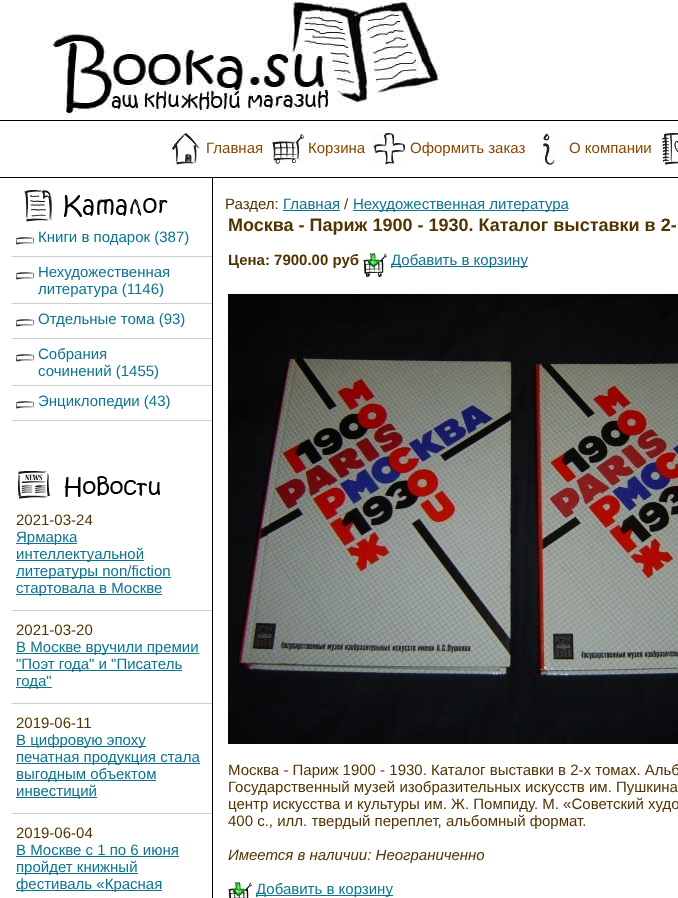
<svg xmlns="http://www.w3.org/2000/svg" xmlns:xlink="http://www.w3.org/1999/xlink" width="678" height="898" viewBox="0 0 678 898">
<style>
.cls-1{font:15px Liberation Sans;fill:#884700}
.cls-2{font:15px Liberation Sans;fill:#0c748e}
.cls-3{font:15px Liberation Sans;fill:#513400}
.cls-4{font:bold 18px Liberation Sans;fill:#513400}
.cls-5{font:bold 15px Liberation Sans;fill:#513400}
.cls-6{font:italic 15px Liberation Sans;fill:#513400}
</style>
<rect width="100%" height="100%" fill="#ffffff"/>
<image xlink:href="image0.png" x="48" y="0" width="392" height="119"/>
<rect fill="#000000" x="0" y="120" width="678" height="1"/>
<image xlink:href="image1.png" x="172" y="133" width="28" height="32"/>
<image xlink:href="image2.png" x="272" y="134" width="32" height="30"/>
<image xlink:href="image3.png" x="373" y="133" width="32" height="32"/>
<image xlink:href="image4.png" x="543" y="133" width="12" height="32"/>
<image xlink:href="image5.png" x="662" y="133" width="16" height="32"/>
<rect fill="#000000" x="0" y="177" width="678" height="1"/>
<image xlink:href="image6.png" x="24" y="190" width="144" height="32"/>
<rect fill="#cccccc" x="12" y="256" width="200" height="1"/>
<image xlink:href="image7.png" x="16" y="237" width="18" height="8"/>
<rect fill="#cccccc" x="12" y="303" width="200" height="1"/>
<image xlink:href="image7.png" x="16" y="272" width="18" height="8"/>
<rect fill="#cccccc" x="12" y="338" width="200" height="1"/>
<image xlink:href="image7.png" x="16" y="319" width="18" height="8"/>
<rect fill="#cccccc" x="12" y="385" width="200" height="1"/>
<image xlink:href="image7.png" x="16" y="354" width="18" height="8"/>
<rect fill="#cccccc" x="12" y="420" width="200" height="1"/>
<image xlink:href="image7.png" x="16" y="401" width="18" height="8"/>
<image xlink:href="image8.png" x="18" y="471" width="142" height="28"/>
<rect fill="#cccccc" x="12" y="610" width="200" height="1"/>
<rect fill="#0c748e" x="16" y="543" width="61" height="1"/>
<rect fill="#0c748e" x="16" y="560" width="128" height="1"/>
<rect fill="#0c748e" x="16" y="577" width="155" height="1"/>
<rect fill="#0c748e" x="16" y="594" width="146" height="1"/>
<rect fill="#cccccc" x="12" y="703" width="200" height="1"/>
<rect fill="#0c748e" x="16" y="653" width="183" height="1"/>
<rect fill="#0c748e" x="16" y="670" width="166" height="1"/>
<rect fill="#0c748e" x="16" y="687" width="36" height="1"/>
<rect fill="#cccccc" x="12" y="813" width="200" height="1"/>
<rect fill="#0c748e" x="16" y="746" width="130" height="1"/>
<rect fill="#0c748e" x="16" y="763" width="184" height="1"/>
<rect fill="#0c748e" x="16" y="780" width="140" height="1"/>
<rect fill="#0c748e" x="16" y="797" width="81" height="1"/>
<rect fill="#0c748e" x="16" y="856" width="163" height="1"/>
<rect fill="#0c748e" x="16" y="873" width="122" height="1"/>
<rect fill="#0c748e" x="16" y="890" width="146" height="1"/>
<rect fill="#000000" x="212" y="178" width="1" height="720"/>
<image xlink:href="image9.png" x="212" y="187" width="1" height="19"/>
<rect fill="#0c748e" x="283" y="210" width="57" height="1"/>
<rect fill="#0c748e" x="353" y="210" width="215" height="1"/>
<image xlink:href="image10.png" x="363" y="253" width="24" height="24"/>
<rect fill="#0c748e" x="391" y="266" width="137" height="1"/>
<image xlink:href="image11.png" x="228" y="294" width="450" height="450"/>
<image xlink:href="image12.png" x="228" y="882" width="24" height="16"/>
<rect fill="#0c748e" x="256" y="895" width="137" height="1"/>
<text class="cls-1" x="206" y="153">Главная</text>
<text class="cls-1" x="308" y="153">Корзина</text>
<text class="cls-1" x="410" y="153">Оформить заказ</text>
<text class="cls-1" x="569" y="153">О компании</text>
<text class="cls-2" x="38" y="242">Книги в подарок (387)</text>
<text class="cls-2"><tspan x="38" y="277">Нехудожественная</tspan><tspan x="38" y="294">литература (1146)</tspan></text>
<text class="cls-2" x="38" y="324">Отдельные тома (93)</text>
<text class="cls-2"><tspan x="38" y="359">Собрания</tspan><tspan x="38" y="376">сочинений (1455)</tspan></text>
<text class="cls-2" x="38" y="406">Энциклопедии (43)</text>
<text class="cls-3" x="16" y="525">2021-03-24</text>
<text class="cls-2"><tspan x="16" y="542">Ярмарка</tspan><tspan x="16" y="559">интеллектуальной</tspan><tspan x="16" y="576">литературы non/fiction</tspan><tspan x="16" y="593">стартовала в Москве</tspan></text>
<text class="cls-3" x="16" y="635">2021-03-20</text>
<text class="cls-2"><tspan x="16" y="652">В Москве вручили премии</tspan><tspan x="16" y="669">"Поэт года" и "Писатель</tspan><tspan x="16" y="686">года"</tspan></text>
<text class="cls-3" x="16" y="728">2019-06-11</text>
<text class="cls-2"><tspan x="16" y="745">В цифровую эпоху</tspan><tspan x="16" y="762">печатная продукция стала</tspan><tspan x="16" y="779">выгодным объектом</tspan><tspan x="16" y="796">инвестиций</tspan></text>
<text class="cls-3" x="16" y="838">2019-06-04</text>
<text class="cls-2"><tspan x="16" y="855">В Москве с 1 по 6 июня</tspan><tspan x="16" y="872">пройдет книжный</tspan><tspan x="16" y="889">фестиваль «Красная</tspan></text>
<text class="cls-3" x="225" y="209">Раздел:</text>
<text class="cls-2" x="283" y="209">Главная</text>
<text class="cls-3" x="344" y="209">/</text>
<text class="cls-2" x="353" y="209">Нехудожественная литература</text>
<text class="cls-4" x="228" y="231">Москва - Париж 1900 - 1930. Каталог выставки в 2-</text>
<text class="cls-5" x="228" y="265">Цена: 7900.00 руб</text>
<text class="cls-2" x="391" y="265">Добавить в корзину</text>
<text class="cls-3"><tspan x="228" y="775">Москва - Париж 1900 - 1930. Каталог выставки в 2-х томах. Альб</tspan><tspan x="228" y="792">Государственный музей изобразительных искусств им. Пушкина</tspan><tspan x="228" y="809">центр искусства и культуры им. Ж. Помпиду. М. «Советский худо</tspan><tspan x="228" y="826">400 с., илл. твердый переплет, альбомный формат.</tspan></text>
<text class="cls-6" x="228" y="860">Имеется в наличии: Неограниченно</text>
<text class="cls-2" x="256" y="894">Добавить в корзину</text>
</svg>
